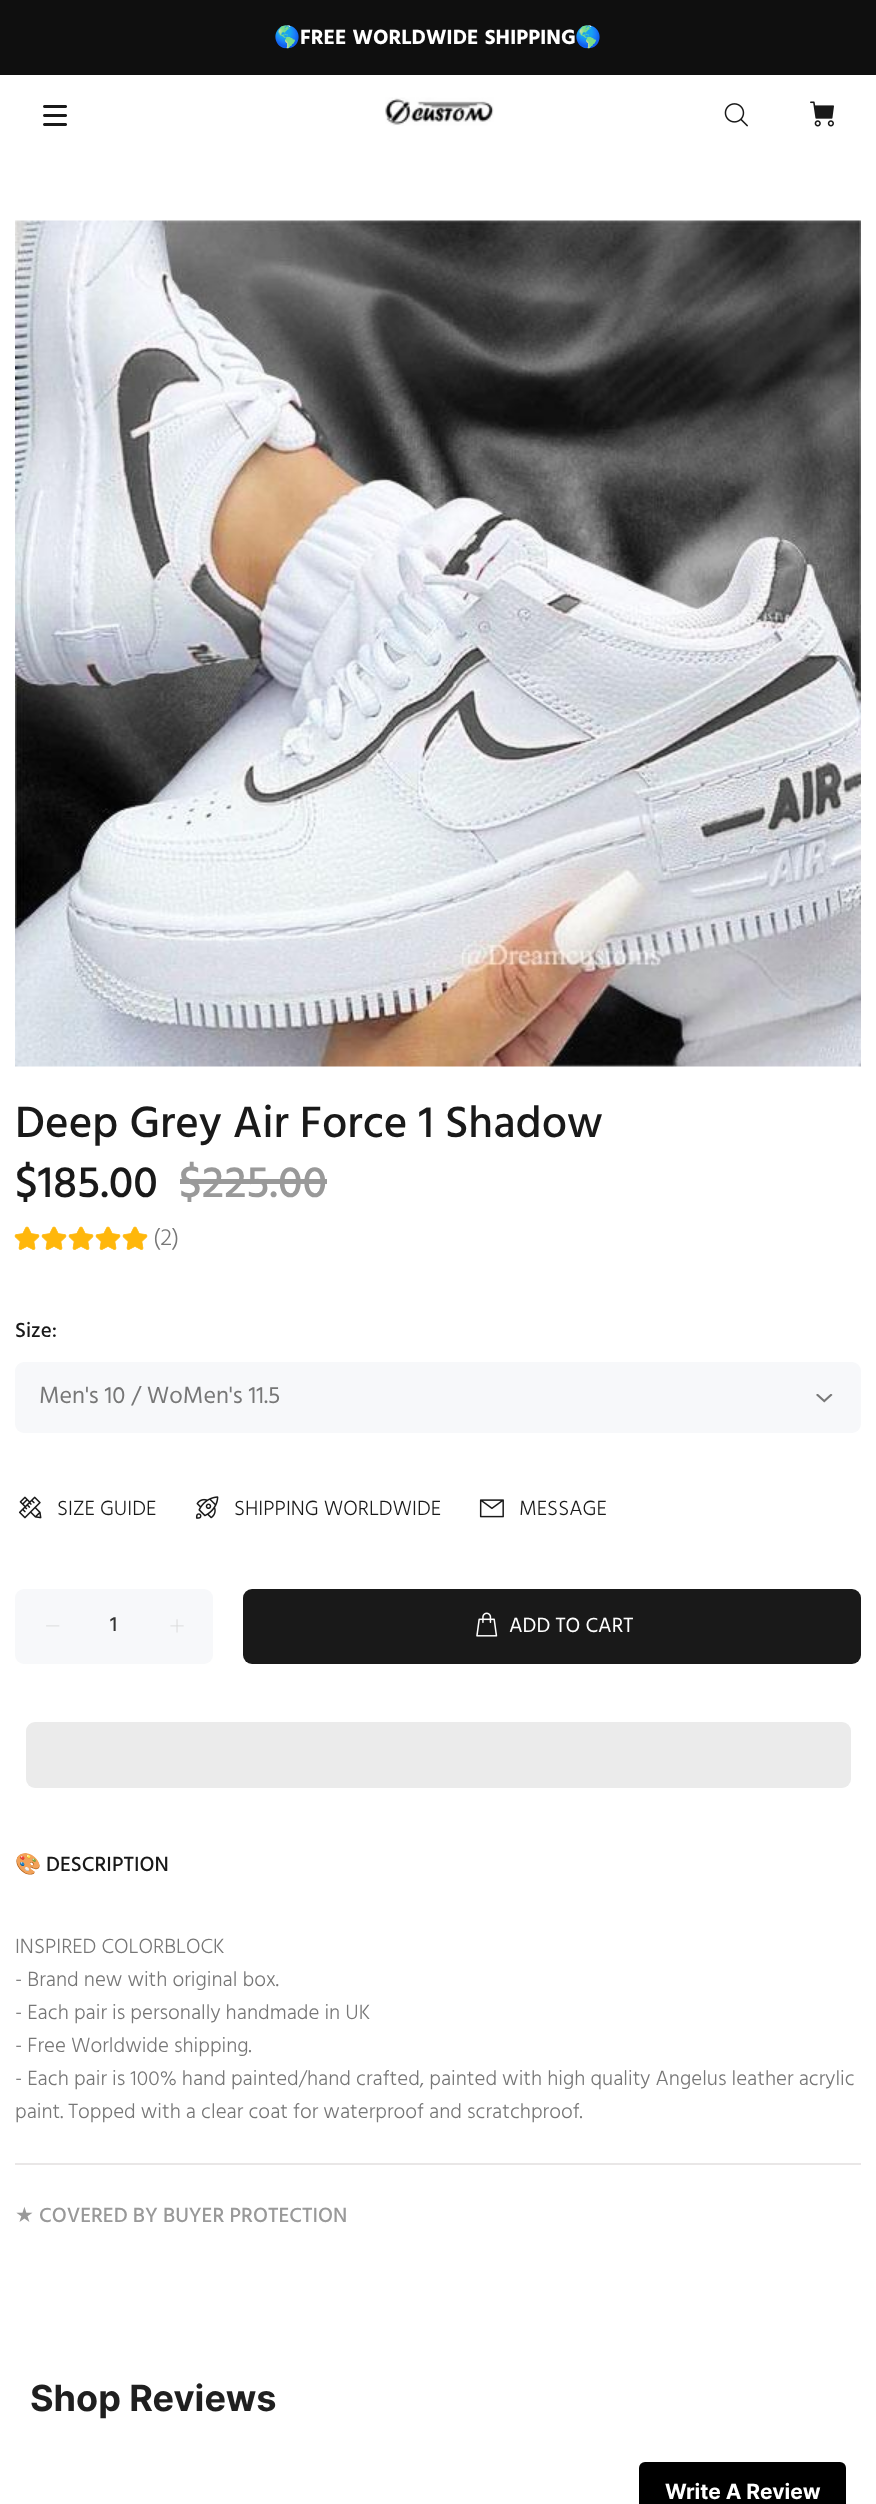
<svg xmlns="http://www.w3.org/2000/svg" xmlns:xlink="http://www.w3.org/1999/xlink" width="876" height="2504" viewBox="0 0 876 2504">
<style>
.cls-1{font:bold 21px Noto Color Emoji;fill:#ffffff}
.cls-2{font:bold 21px Hind;fill:#ffffff}
.cls-3{font:500 45px Hind;fill:#191919}
.cls-4{font:500 45px Hind;fill:#999999}
.cls-5{font:300 24px Hind;fill:#777777}
.cls-6{font:500 21px Hind;fill:#191919}
.cls-7{font:24px Hind;fill:#777777}
.cls-8{font:300 21px Hind;fill:#191919}
.cls-9{font:500 21px Hind;fill:#333333}
.cls-10{font:21px Hind;fill:#ffffff}
.cls-11{font:21px Noto Color Emoji;fill:#191919}
.cls-12{font:300 21px Hind;fill:#777777}
.cls-13{font:21px DejaVu Sans;fill:#999999}
.cls-14{font:500 21px Hind;fill:#999999}
.cls-15{font:bold 36px Inter;fill:#1f1f1f}
.cls-16{font:bold 21px Inter;fill:#ffffff}
</style>
<rect width="100%" height="100%" fill="#ffffff"/>
<rect fill="#0f0f0f" x="0" y="0" width="876" height="75"/>
<image xlink:href="image0.png" x="43" y="105" width="24" height="21"/>
<image xlink:href="image1.png" x="385" y="97" width="109" height="29"/>
<image xlink:href="image2.png" x="724" y="103" width="24" height="24"/>
<image xlink:href="image3.png" x="810" y="101" width="24" height="26"/>
<image xlink:href="image4.png" x="15" y="220" width="846" height="847"/>
<rect fill="#999999" x="180" y="1179" width="147" height="5"/>
<image xlink:href="image5.png" x="14" y="1226" width="26" height="24"/>
<image xlink:href="image5.png" x="41" y="1226" width="26" height="24"/>
<image xlink:href="image5.png" x="68" y="1226" width="26" height="24"/>
<image xlink:href="image5.png" x="95" y="1226" width="26" height="24"/>
<image xlink:href="image5.png" x="122" y="1226" width="26" height="24"/>
<rect fill="#f7f8fa" x="15" y="1362" width="846" height="71" rx="9"/>
<image xlink:href="image6.png" x="816" y="1394" width="17" height="9"/>
<image xlink:href="image7.png" x="18" y="1496" width="24" height="23"/>
<image xlink:href="image8.png" x="195" y="1496" width="24" height="23"/>
<image xlink:href="image9.png" x="479" y="1499" width="25" height="19"/>
<rect fill="#f7f8fa" x="15" y="1589" width="198" height="75" rx="9"/>
<image xlink:href="image10.png" x="46" y="1625" width="14" height="2"/>
<image xlink:href="image11.png" x="170" y="1619" width="14" height="14"/>
<rect fill="#191919" x="243" y="1589" width="618" height="75" rx="9"/>
<image xlink:href="image12.png" x="476" y="1612" width="22" height="25"/>
<rect fill="#ebebeb" x="26" y="1722" width="825" height="66" rx="9"/>
<rect fill="#e9e7e7" x="15" y="2163" width="846" height="2"/>
<rect fill="#000000" x="639" y="2462" width="207" height="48" rx="6"/>
<text class="cls-1" x="274" y="44">🌎</text>
<text class="cls-2" x="300" y="44" word-spacing="1">FREE WORLDWIDE SHIPPING</text>
<text class="cls-1" x="575" y="44">🌎</text>
<text class="cls-3"><tspan x="15" y="1137">Deep Grey Air Force 1 Shadow</tspan><tspan x="15" y="1197">$185.00</tspan></text>
<text class="cls-4" x="179" y="1197">$225.00</text>
<text class="cls-5" x="153" y="1245">(2)</text>
<text class="cls-6" x="15" y="1337">Size:</text>
<text class="cls-7" x="39" y="1403">Men's 10 / WoMen's 11.5</text>
<text class="cls-8" x="57" y="1515">SIZE GUIDE</text>
<text class="cls-8" x="234" y="1515">SHIPPING WORLDWIDE</text>
<text class="cls-8" x="519" y="1515">MESSAGE</text>
<text class="cls-9" x="110" y="1631">1</text>
<text class="cls-10" x="509" y="1632">ADD TO CART</text>
<text class="cls-11" x="15" y="1871">🎨</text>
<text class="cls-6" x="46" y="1871">DESCRIPTION</text>
<text class="cls-12"><tspan x="15" y="1953">INSPIRED COLORBLOCK</tspan><tspan x="15" y="1986">- Brand new with original box.</tspan><tspan x="15" y="2019">- Each pair is personally handmade in UK</tspan><tspan x="15" y="2052">- Free Worldwide shipping.</tspan><tspan x="15" y="2085">- Each pair is 100% hand painted/hand crafted, painted with high quality Angelus leather acrylic</tspan><tspan x="15" y="2118">paint. Topped with a clear coat for waterproof and scratchproof.</tspan></text>
<text class="cls-13" x="15" y="2222">★</text>
<text class="cls-14" x="39" y="2222">COVERED BY BUYER PROTECTION</text>
<text class="cls-15" x="30" y="2411">Shop Reviews</text>
<text class="cls-16" x="665" y="2499">Write A Review</text>
</svg>
